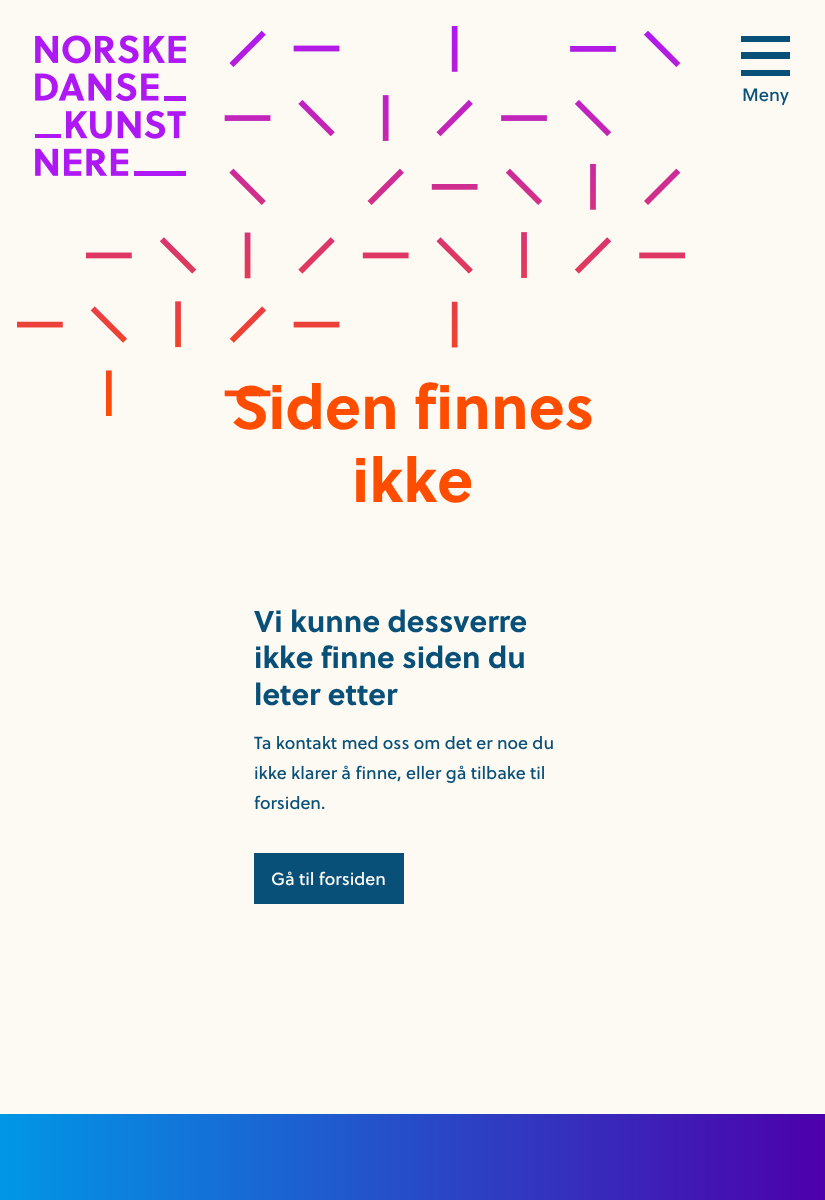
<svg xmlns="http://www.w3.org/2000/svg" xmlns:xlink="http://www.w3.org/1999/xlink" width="825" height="1200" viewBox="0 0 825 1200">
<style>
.cls-1{font:18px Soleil;fill:#095078}
.cls-2{font:bold 61.25px Soleil;fill:#ff4d00}
.cls-3{font:bold 30px Soleil;fill:#095078}
.cls-4{font:17.5px Soleil;fill:#095078}
.cls-5{font:17.5px Soleil;fill:#fdfaf4}
</style>
<defs>
<linearGradient id="g1" gradientUnits="userSpaceOnUse" x1="825" y1="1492" x2="0" y2="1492"><stop offset="0" stop-color="#4d00ab"/><stop offset="1" stop-color="#0197e6"/></linearGradient>
</defs>
<rect width="100%" height="100%" fill="#fdfaf4"/>
<image xlink:href="image0.png" x="17" y="26" width="668" height="390"/>
<image xlink:href="image1.png" x="35" y="35" width="151" height="141"/>
<rect fill="#095078" x="741" y="36" width="49" height="6"/>
<rect fill="#095078" x="741" y="52" width="49" height="7"/>
<rect fill="#095078" x="741" y="70" width="49" height="6"/>
<rect fill="#095078" x="254" y="853" width="150" height="51"/>
<rect fill="url(#g1)" x="0" y="1114" width="825" height="86"/>
<text class="cls-1" x="742" y="101">Meny</text>
<text class="cls-2" x="231" y="429">Siden finnes</text>
<text class="cls-2" x="352" y="502">ikke</text>
<text class="cls-3"><tspan x="254" y="632">Vi kunne dessverre</tspan><tspan x="254" y="668">ikke finne siden du</tspan><tspan x="254" y="705">leter etter</tspan></text>
<text class="cls-4"><tspan x="254" y="749">Ta kontakt med oss om det er noe du</tspan><tspan x="254" y="779">ikke klarer å finne, eller gå tilbake til</tspan><tspan x="254" y="809">forsiden.</tspan></text>
<text class="cls-5" x="271" y="885">Gå til forsiden</text>
</svg>
